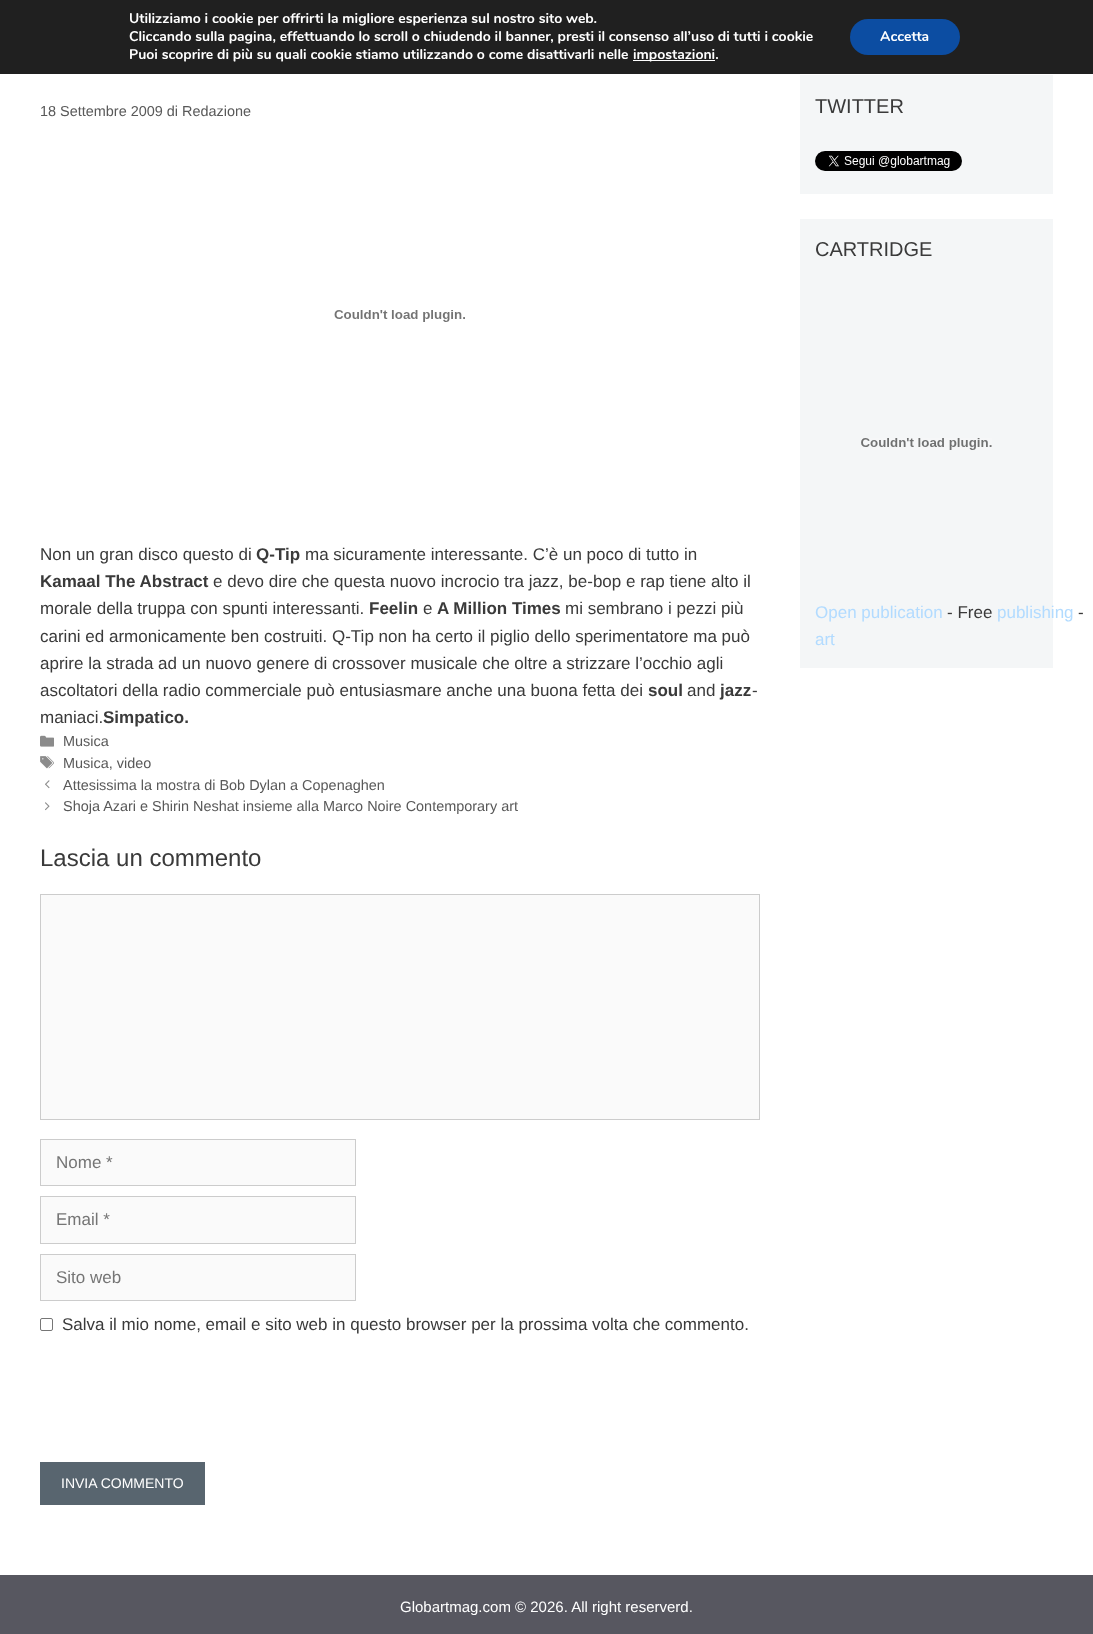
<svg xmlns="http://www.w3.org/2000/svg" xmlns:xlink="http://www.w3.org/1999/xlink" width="1093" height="1634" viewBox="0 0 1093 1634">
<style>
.cls-1{font:bold 14px Nunito;fill:#ffffff}
.cls-2{font:14.45px Liberation Sans;fill:#595959}
.cls-3{font:17px Liberation Sans;fill:#3a3a3a}
.cls-4{font:bold 17px Liberation Sans;fill:#3a3a3a}
.cls-5{font:24px Liberation Sans;fill:#3a3a3a}
.cls-6{font:17px Liberation Sans;fill:#757575}
.cls-7{font:14px Liberation Sans;fill:#ffffff}
.cls-8{font:20px Liberation Sans;fill:#3a3a3a}
.cls-9{font:17px Liberation Sans;fill:#b2dbff}
.cls-10{font:15px Liberation Sans;fill:#ffffff}
</style>
<rect width="100%" height="100%" fill="#ffffff"/>
<rect fill="#202020" x="0" y="0" width="1093" height="74"/>
<rect fill="#ffffff" x="633" y="60" width="82" height="1"/>
<rect fill="#0c4da2" x="850" y="19" width="110" height="36" rx="18"/>
<image xlink:href="image0.png" x="334" y="310" width="131" height="12"/>
<image xlink:href="image1.png" x="40" y="735" width="14" height="12"/>
<image xlink:href="image2.png" x="40" y="756" width="14" height="13"/>
<image xlink:href="image3.png" x="45" y="780" width="5" height="9"/>
<image xlink:href="image4.png" x="45" y="802" width="5" height="9"/>
<rect fill="#fafafa" stroke="#cccccc" x="40.5" y="894.5" width="719" height="225"/>
<rect fill="#fafafa" stroke="#cccccc" x="40.5" y="1139.5" width="315" height="46"/>
<rect fill="#fafafa" stroke="#cccccc" x="40.5" y="1196.5" width="315" height="47"/>
<rect fill="#fafafa" stroke="#cccccc" x="40.5" y="1254.5" width="315" height="46"/>
<rect fill="none" stroke="#767676" x="40.5" y="1318.5" width="12" height="12" rx="1.5"/>
<rect fill="#58656f" x="40" y="1462" width="165" height="43"/>
<rect fill="#f4f6f7" x="800" y="75" width="253" height="119"/>
<image xlink:href="image5.png" x="815" y="151" width="147" height="20"/>
<rect fill="#f4f6f7" x="800" y="219" width="253" height="449"/>
<image xlink:href="image6.png" x="861" y="438" width="131" height="12"/>
<rect fill="#575760" x="0" y="1575" width="1093" height="59"/>
<text class="cls-1"><tspan x="129" y="23">Utilizziamo i cookie per offrirti la migliore esperienza sul nostro sito web.</tspan><tspan x="129" y="41">Cliccando sulla pagina, effettuando lo scroll o chiudendo il banner, presti il consenso all’uso di tutti i cookie</tspan><tspan x="129" y="59">Puoi scoprire di più su quali cookie stiamo utilizzando o come disattivarli nelle</tspan></text>
<text class="cls-1" x="633" y="59">impostazioni.</text>
<text class="cls-1" x="880" y="41">Accetta</text>
<text class="cls-2" x="40" y="116">18 Settembre 2009 di Redazione</text>
<text class="cls-3" x="40" y="560">Non un gran disco questo di</text>
<text class="cls-4" x="256" y="560">Q-Tip</text>
<text class="cls-3" x="305" y="560">ma sicuramente interessante. C’è un poco di tutto in</text>
<text class="cls-4" x="40" y="587">Kamaal The Abstract</text>
<text class="cls-3" x="213" y="587">e devo dire che questa nuovo incrocio tra jazz, be-bop e rap tiene alto il</text>
<text class="cls-3" x="40" y="614">morale della truppa con spunti interessanti.</text>
<text class="cls-4" x="369" y="614">Feelin</text>
<text class="cls-3" x="423" y="614">e</text>
<text class="cls-4" x="437" y="614">A Million Times</text>
<text class="cls-3" x="565" y="614">mi sembrano i pezzi più</text>
<text class="cls-3"><tspan x="40" y="642">carini ed armonicamente ben costruiti. Q-Tip non ha certo il piglio dello sperimentatore ma può</tspan><tspan x="40" y="669">aprire la strada ad un nuovo genere di crossover musicale che oltre a strizzare l’occhio agli</tspan><tspan x="40" y="696">ascoltatori della radio commerciale può entusiasmare anche una buona fetta dei</tspan></text>
<text class="cls-4" x="648" y="696">soul</text>
<text class="cls-3" x="687" y="696">and</text>
<text class="cls-4" x="720" y="696">jazz</text>
<text class="cls-3" x="752" y="696">-</text>
<text class="cls-3" x="40" y="723">maniaci.</text>
<text class="cls-4" x="103" y="723">Simpatico.</text>
<text class="cls-2"><tspan x="63" y="746">Musica</tspan><tspan x="63" y="768">Musica, video</tspan><tspan x="63" y="790">Attesissima la mostra di Bob Dylan a Copenaghen</tspan><tspan x="63" y="811">Shoja Azari e Shirin Neshat insieme alla Marco Noire Contemporary art</tspan></text>
<text class="cls-5" x="40" y="866">Lascia un commento</text>
<text class="cls-6" x="56" y="1168">Nome *</text>
<text class="cls-6" x="56" y="1225">Email *</text>
<text class="cls-6" x="56" y="1283">Sito web</text>
<text class="cls-3" x="62" y="1330">Salva il mio nome, email e sito web in questo browser per la prossima volta che commento.</text>
<text class="cls-7" x="61" y="1488">INVIA COMMENTO</text>
<text class="cls-8" x="815" y="113">TWITTER</text>
<text class="cls-8" x="815" y="256">CARTRIDGE</text>
<text class="cls-9" x="815" y="618">Open publication</text>
<text class="cls-3" x="947" y="618">- Free</text>
<text class="cls-9" x="997" y="618">publishing</text>
<text class="cls-3" x="1078" y="618">-</text>
<text class="cls-9" x="815" y="645">art</text>
<text class="cls-10" x="400" y="1612">Globartmag.com © 2026. All right reserverd.</text>
</svg>
